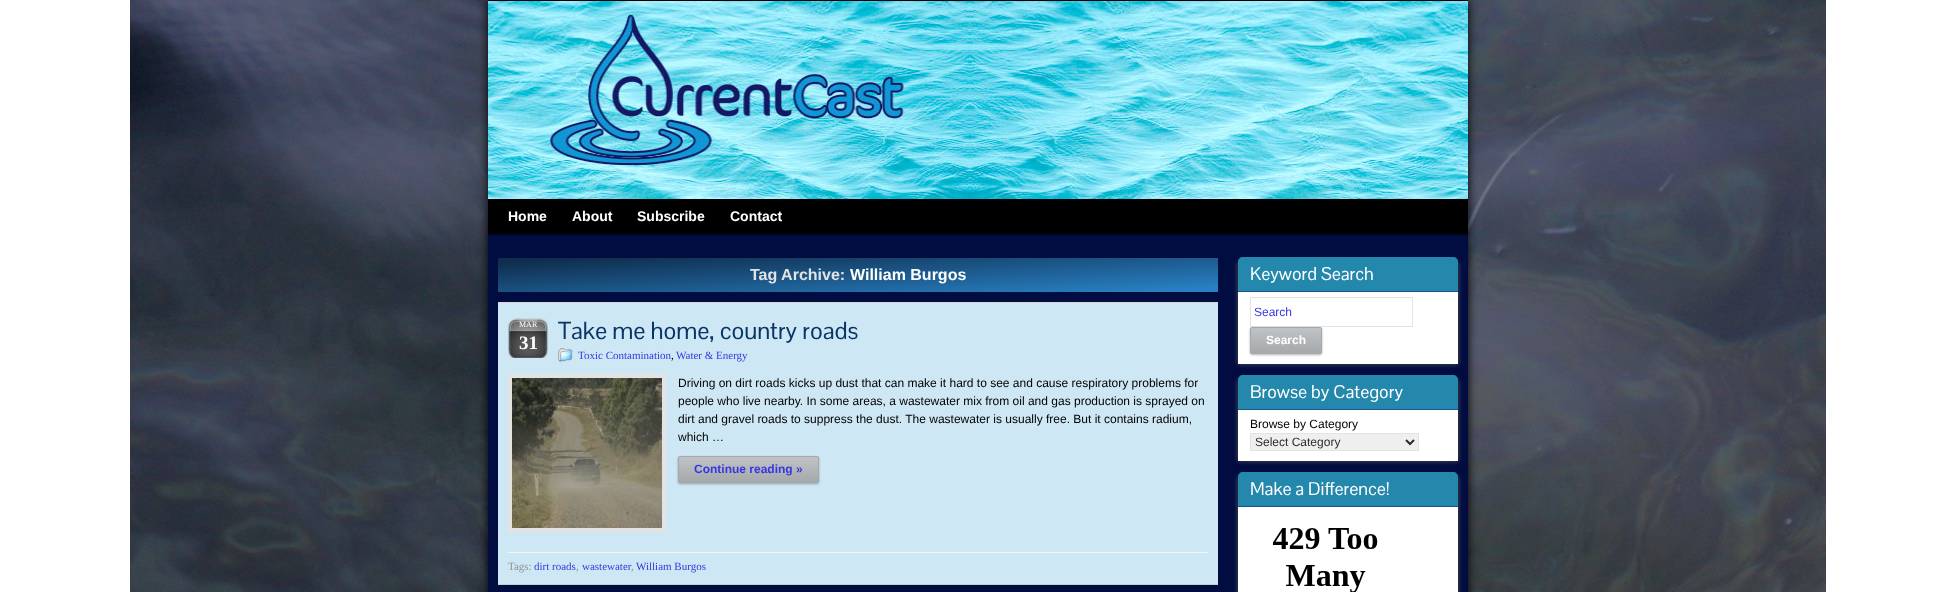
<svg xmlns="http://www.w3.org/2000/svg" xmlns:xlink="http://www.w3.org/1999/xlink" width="1956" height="592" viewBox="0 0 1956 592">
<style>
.cls-1{font:bold 14px Liberation Sans;fill:#ffffff}
.cls-2{font:bold 16px Liberation Sans;fill:#e3e3e3}
.cls-3{font:bold 16px Liberation Sans;fill:#ffffff}
.cls-4{font:8px Liberation Serif;fill:#ffffff}
.cls-5{font:bold 19px Liberation Serif;fill:#ffffff}
.cls-6{font:24px Pontano Sans;fill:#093565}
.cls-7{font:11px Liberation Serif;fill:#3737df}
.cls-8{font:11px Liberation Serif;fill:#000000}
.cls-9{font:12px Liberation Sans;fill:#000000}
.cls-10{font:bold 12px Liberation Sans;fill:#3737df}
.cls-11{font:11px Liberation Serif;fill:#929292}
.cls-12{font:18px Pontano Sans;fill:#ffffff}
.cls-13{font:12px Liberation Sans;fill:#3737df}
.cls-14{font:bold 12px Liberation Sans;fill:#ffffff}
.cls-15{font:12px Liberation Sans;fill:#2c2b2b}
</style>
<defs>
<linearGradient id="g1" gradientUnits="userSpaceOnUse" x1="856" y1="241" x2="860" y2="309"><stop offset="0" stop-color="#0f2d4d"/><stop offset="1" stop-color="#2880c3"/></linearGradient>
<clipPath id="clip1"><rect x="678" y="456" width="141" height="27" rx="2"/></clipPath>
<linearGradient id="g2" gradientUnits="userSpaceOnUse" x1="749" y1="457" x2="749" y2="482"><stop offset="0" stop-color="#bfc3c5"/><stop offset="1" stop-color="#a5a9ab"/></linearGradient>
<clipPath id="clip2"><rect x="1250" y="327" width="72" height="27" rx="2"/></clipPath>
<linearGradient id="g3" gradientUnits="userSpaceOnUse" x1="1286" y1="328" x2="1286" y2="353"><stop offset="0" stop-color="#bfc3c5"/><stop offset="1" stop-color="#a5a9ab"/></linearGradient>
</defs>
<rect width="100%" height="100%" fill="#ffffff"/>
<image xlink:href="image0.png" x="130" y="0" width="1696" height="592"/>
<rect fill="#000000" filter="blur(5px)" x="488" y="0" width="980" height="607"/>
<rect fill="#000000" x="488" y="0" width="980" height="1"/>
<image xlink:href="image1.png" x="488" y="1" width="980" height="198"/>
<rect fill="#000000" x="488" y="199" width="980" height="35"/>
<rect fill="#010c41" x="488" y="234" width="980" height="358"/>
<image xlink:href="image2.png" x="488" y="234" width="980" height="2"/>
<rect fill="url(#g1)" x="498" y="258" width="720" height="34"/>
<rect fill="#cee7f4" x="498" y="303" width="720" height="281"/>
<rect fill="#d8d8d8" x="498" y="302" width="720" height="1"/>
<rect fill="#cccccc" x="498" y="584" width="720" height="1"/>
<image xlink:href="image3.png" x="508" y="318" width="40" height="40"/>
<image xlink:href="image4.png" x="558" y="348" width="15" height="14"/>
<rect fill="none" stroke="#e3e3e3" stroke-width="4" x="510" y="376" width="154" height="154"/>
<image xlink:href="image5.png" x="512" y="378" width="150" height="150"/>
<rect fill="#000000" fill-opacity="0.3" filter="blur(1px)" x="678" y="457" width="141" height="27" rx="2"/>
<g clip-path="url(#clip1)">
<rect fill="url(#g2)" x="678" y="457" width="141" height="25"/>
</g>
<rect fill="none" stroke="#a5a9ab" x="678.5" y="456.5" width="140" height="26" rx="1.5"/>
<rect fill="#f5f5f5" x="508" y="552" width="700" height="1"/>
<rect fill="#555555" filter="blur(2.5px)" x="1238" y="262" width="220" height="102"/>
<rect fill="#ffffff" x="1238" y="292" width="220" height="72"/>
<path fill="#2487ac" d="M1243 257H1453C1456 257 1458 259 1458 262V292H1238V262C1238 259 1240 257 1243 257Z"/>
<rect fill="#195392" x="1238" y="291" width="220" height="1"/>
<rect fill="none" stroke="#e3e3e3" x="1250.5" y="297.5" width="162" height="29"/>
<rect fill="#000000" fill-opacity="0.3" filter="blur(1px)" x="1250" y="328" width="72" height="27" rx="2"/>
<g clip-path="url(#clip2)">
<rect fill="url(#g3)" x="1250" y="328" width="72" height="25"/>
</g>
<rect fill="none" stroke="#a5a9ab" x="1250.5" y="327.5" width="71" height="26" rx="1.5"/>
<rect fill="#555555" filter="blur(2.5px)" x="1238" y="380" width="220" height="81"/>
<rect fill="#ffffff" x="1238" y="410" width="220" height="51"/>
<path fill="#2487ac" d="M1243 375H1453C1456 375 1458 377 1458 380V410H1238V380C1238 377 1240 375 1243 375Z"/>
<rect fill="#195392" x="1238" y="409" width="220" height="1"/>
<rect fill="#efefef" stroke="#e3e3e3" x="1250.5" y="433.5" width="168" height="17"/>
<path fill="none" stroke="#2c2b2b" stroke-width="2" d="M1406 440L1410 444L1414 440"/>
<rect fill="#555555" filter="blur(2.5px)" x="1238" y="477" width="220" height="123"/>
<rect fill="#ffffff" x="1238" y="507" width="220" height="85"/>
<path fill="#2487ac" d="M1243 472H1453C1456 472 1458 474 1458 477V507H1238V477C1238 474 1240 472 1243 472Z"/>
<rect fill="#195392" x="1238" y="506" width="220" height="1"/>
<image xlink:href="image6.png" x="1272" y="528" width="106" height="64"/>
<text class="cls-1" x="508" y="221">Home</text>
<text class="cls-1" x="572" y="221">About</text>
<text class="cls-1" x="637" y="221">Subscribe</text>
<text class="cls-1" x="730" y="221">Contact</text>
<text class="cls-2" x="750" y="280">Tag Archive:</text>
<text class="cls-3" x="850" y="280">William Burgos</text>
<text class="cls-4" x="519" y="327">MAR</text>
<text class="cls-5" x="519" y="349">31</text>
<text class="cls-6" x="558" y="339">Take me home, country roads</text>
<text class="cls-7" x="578" y="359">Toxic Contamination</text>
<text class="cls-8" x="671" y="359">,</text>
<text class="cls-7" x="676" y="359">Water &amp; Energy</text>
<text class="cls-9"><tspan x="678" y="387">Driving on dirt roads kicks up dust that can make it hard to see and cause respiratory problems for</tspan><tspan x="678" y="405">people who live nearby. In some areas, a wastewater mix from oil and gas production is sprayed on</tspan><tspan x="678" y="423">dirt and gravel roads to suppress the dust. The wastewater is usually free. But it contains radium,</tspan><tspan x="678" y="441">which …</tspan></text>
<text class="cls-10" x="694" y="473">Continue reading »</text>
<text class="cls-11" x="508" y="570">Tags:</text>
<text class="cls-7" x="534" y="570">dirt roads</text>
<text class="cls-11" x="576" y="570">,</text>
<text class="cls-7" x="582" y="570">wastewater</text>
<text class="cls-7" x="636" y="570">William Burgos</text>
<text class="cls-11" x="631" y="570">,</text>
<text class="cls-12" x="1250" y="280">Keyword Search</text>
<text class="cls-13" x="1254" y="316">Search</text>
<text class="cls-14" x="1266" y="344">Search</text>
<text class="cls-12" x="1250" y="398">Browse by Category</text>
<text class="cls-9" x="1250" y="428">Browse by Category</text>
<text class="cls-15" x="1255" y="446">Select Category</text>
<text class="cls-12" x="1250" y="495">Make a Difference!</text>
</svg>
